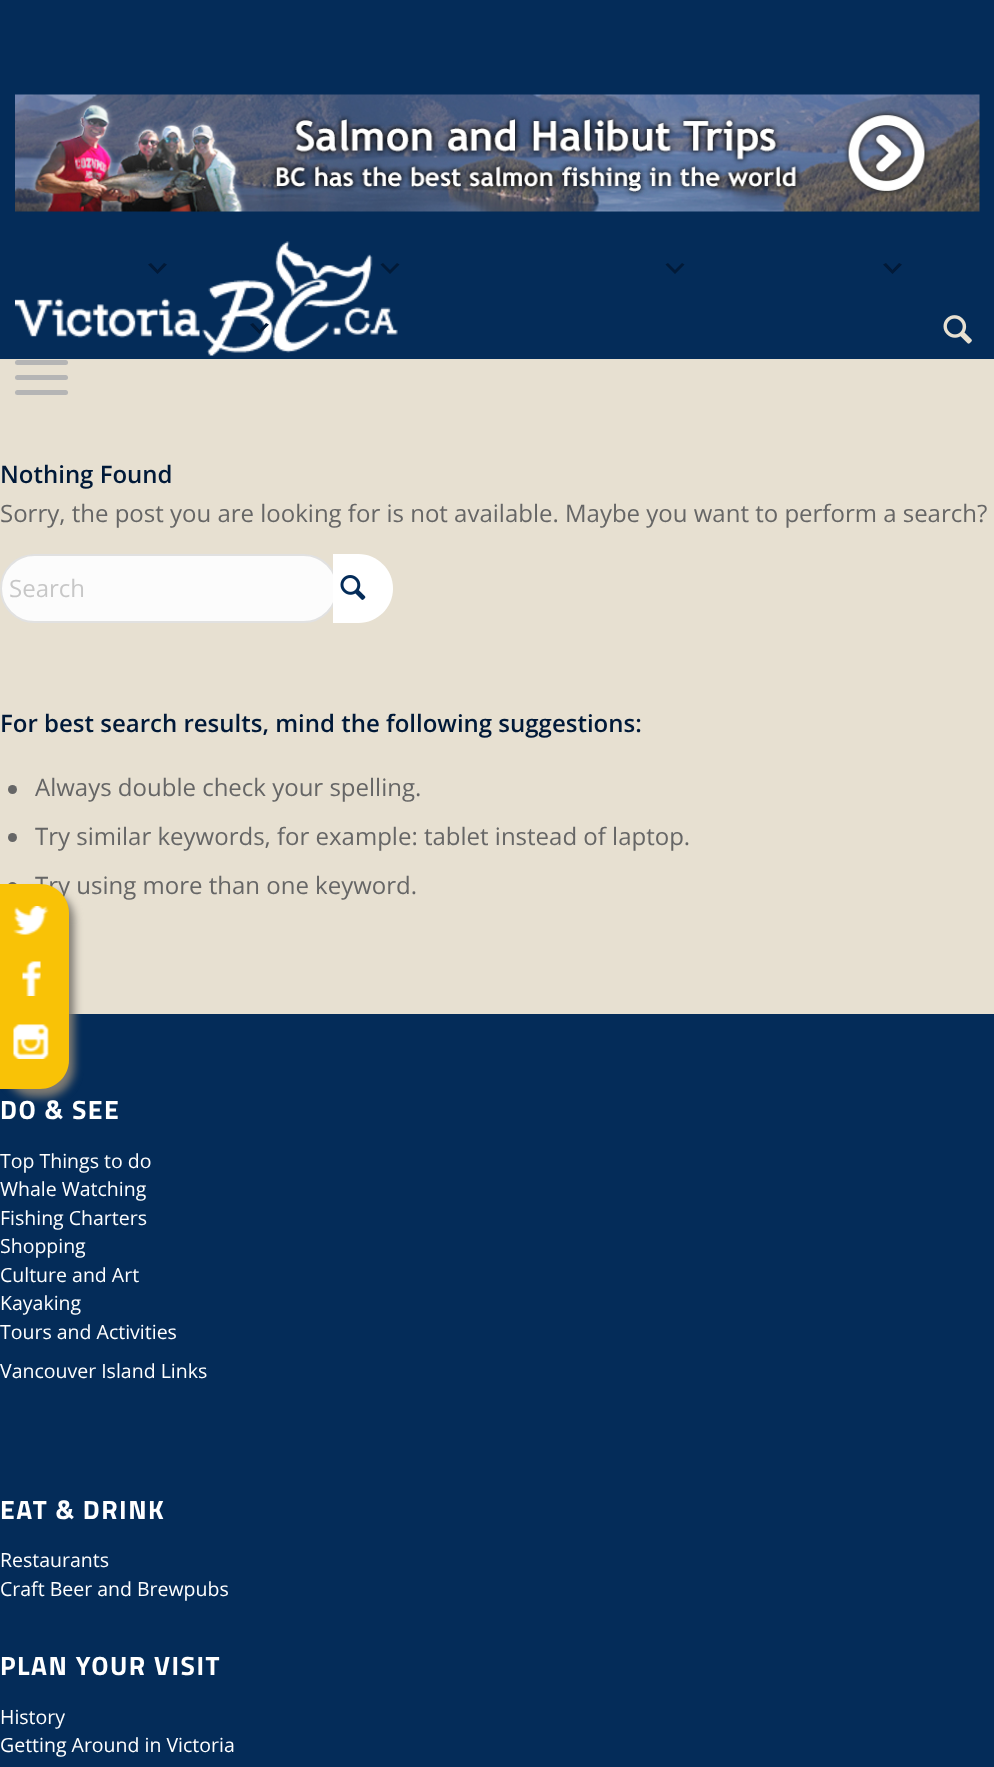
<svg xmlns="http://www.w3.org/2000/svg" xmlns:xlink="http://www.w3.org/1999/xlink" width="994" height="1767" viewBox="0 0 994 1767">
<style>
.cls-1{font:600 24px Open Sans;fill:#001938}
.cls-2{font:24px Open Sans;fill:#666666}
.cls-3{font:24px Open Sans;fill:#c7c7c7}
.cls-4{font:bold 26.5px Titillium Web;letter-spacing:1.5px;fill:#ffffff}
.cls-5{font:19.5px Open Sans;fill:#ffffff}
</style>
<rect width="100%" height="100%" fill="#e7e0d1"/>
<rect fill="#042c59" x="0" y="0" width="994" height="359"/>
<image xlink:href="image0.png" x="15" y="94" width="965" height="118"/>
<image xlink:href="image1.png" x="15" y="241" width="383" height="115"/>
<path fill="#021a38" d="M151 263L157.5 270L164 263L167 264.5L157.5 274L148 264.5Z"/>
<path fill="#021a38" d="M383 263L390 270L397 263L399.5 264.5L390 274L380.5 264.5Z"/>
<path fill="#021a38" d="M668 263L675 270L682 263L684.5 264.5L675 274L665.5 264.5Z"/>
<path fill="#021a38" d="M886 263L892.5 270L899 263L902 264.5L892.5 274L883 264.5Z"/>
<path fill="#021a38" d="M253 323L259.5 330L266 323L269 324.5L259.5 334L250 324.5Z"/>
<image xlink:href="image2.png" x="943" y="315" width="29" height="29"/>
<rect fill="#b5b5b5" x="15" y="375" width="53" height="5" rx="2.5"/>
<rect fill="#b5b5b5" x="15" y="360" width="53" height="5" rx="2.5"/>
<rect fill="#b5b5b5" x="15" y="390" width="53" height="5" rx="2.5"/>
<rect fill="#fcfcfc" stroke="#e1e1e1" stroke-width="2" x="1" y="555" width="336" height="67" rx="33.5"/>
<path fill="#ffffff" d="M333 554H358.5C377.5 554 393 569.5 393 588.5C393 607.5 377.5 623 358.5 623H333Z"/>
<image xlink:href="image3.png" x="340" y="575" width="26" height="25"/>
<circle fill="#666666" cx="12.5" cy="789.5" r="4.5"/>
<circle fill="#666666" cx="12.5" cy="837.5" r="4.5"/>
<circle fill="#666666" cx="12.5" cy="886.5" r="4.5"/>
<rect fill="#042c59" x="0" y="1014" width="994" height="753"/>
<rect fill="#7f7b73" filter="blur(4.5px)" x="5" y="891" width="69" height="206" rx="29"/>
<text class="cls-1" x="0" y="483">Nothing Found</text>
<text class="cls-2" x="0" y="522">Sorry, the post you are looking for is not available. Maybe you want to perform a search?</text>
<text class="cls-3" x="9" y="597">Search</text>
<text class="cls-1" x="0" y="732">For best search results, mind the following suggestions:</text>
<text class="cls-2" x="35" y="796">Always double check your spelling.</text>
<text class="cls-2" x="35" y="845">Try similar keywords, for example: tablet instead of laptop.</text>
<text class="cls-2" x="35" y="894">Try using more than one keyword.</text>
<path fill="#f9c206" d="M0 884H40C56 884 69 897 69 913V1060C69 1076 56 1089 40 1089H0Z"/>
<image xlink:href="image4.png" x="13" y="906" width="36" height="29"/>
<image xlink:href="image5.png" x="22" y="961" width="19" height="35"/>
<image xlink:href="image6.png" x="13" y="1024" width="36" height="35"/>
<text class="cls-4" x="0" y="1119">DO &amp; SEE</text>
<text class="cls-5"><tspan x="0" y="1168">Top Things to do</tspan><tspan x="0" y="1196">Whale Watching</tspan><tspan x="0" y="1225">Fishing Charters</tspan><tspan x="0" y="1253">Shopping</tspan><tspan x="0" y="1282">Culture and Art</tspan><tspan x="0" y="1310">Kayaking</tspan><tspan x="0" y="1339">Tours and Activities</tspan></text>
<text class="cls-5" x="0" y="1378">Vancouver Island Links</text>
<text class="cls-4" x="0" y="1519">EAT &amp; DRINK</text>
<text class="cls-5"><tspan x="0" y="1567">Restaurants</tspan><tspan x="0" y="1596">Craft Beer and Brewpubs</tspan></text>
<text class="cls-4" x="0" y="1675">PLAN YOUR VISIT</text>
<text class="cls-5"><tspan x="0" y="1724">History</tspan><tspan x="0" y="1752">Getting Around in Victoria</tspan></text>
</svg>
